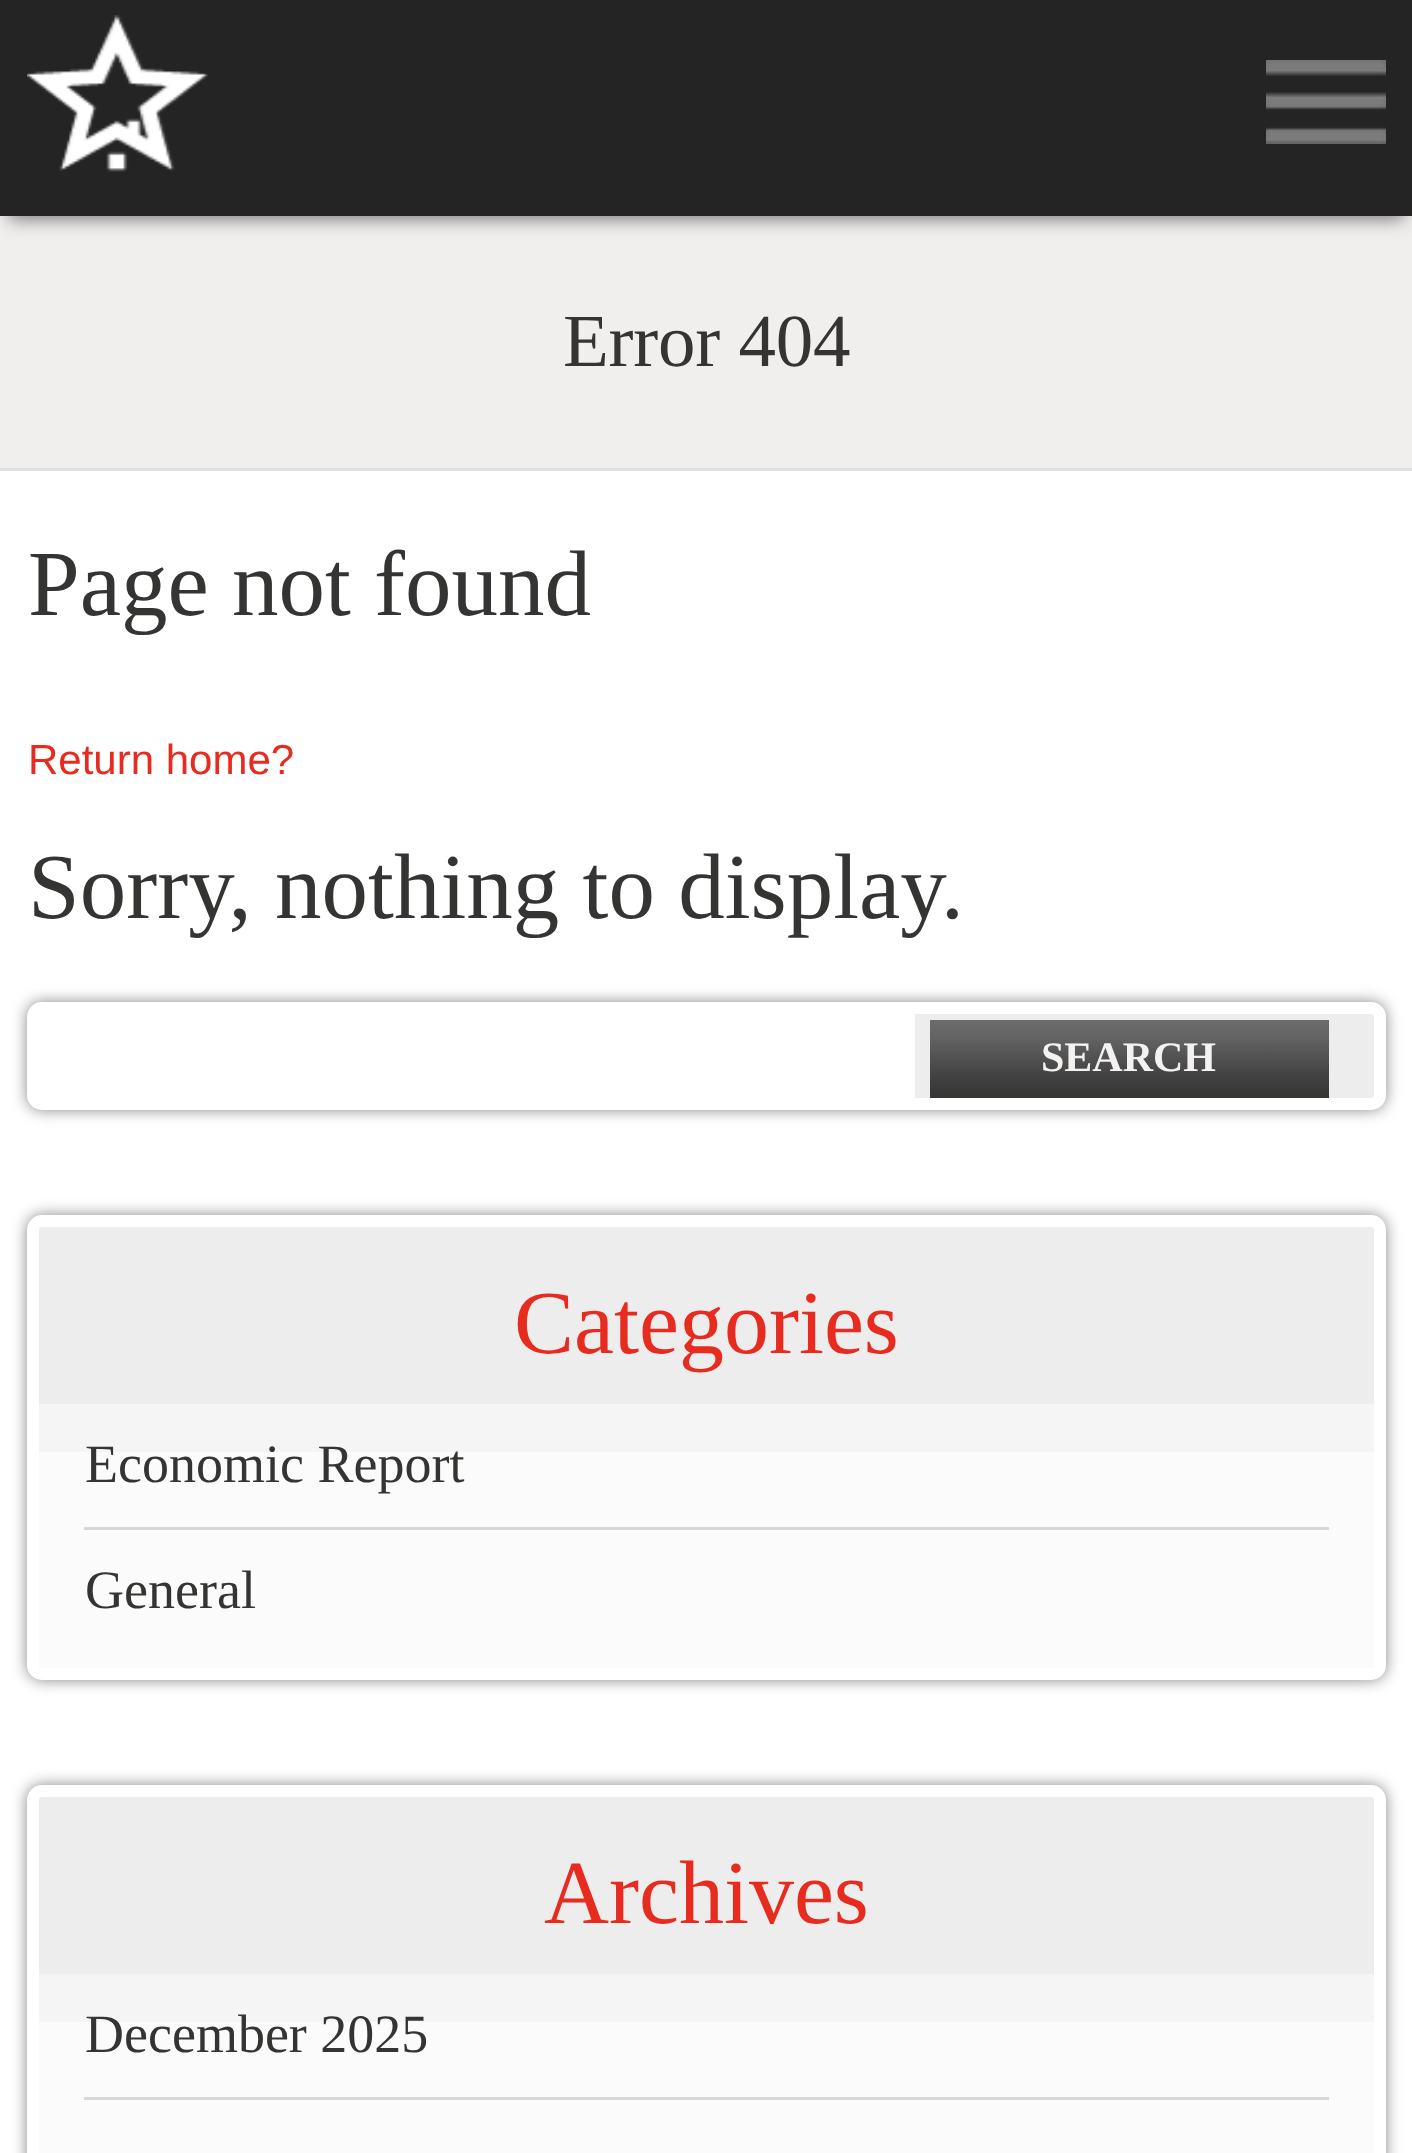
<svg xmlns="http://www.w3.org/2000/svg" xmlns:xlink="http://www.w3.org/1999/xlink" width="1412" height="2153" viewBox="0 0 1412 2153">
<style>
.cls-1{font:75px Liberation Serif;letter-spacing:-0.25px;fill:#343433}
.cls-2{font:93px Liberation Serif;fill:#343433}
.cls-3{font:42px Liberation Sans;fill:#e72b1f}
.cls-4{font:bold 42px Liberation Serif;fill:#f4f2f1}
.cls-5{font:90px Liberation Serif;fill:#e72b1f}
.cls-6{font:54px Liberation Serif;fill:#343433}
</style>
<defs>
<linearGradient id="g1" gradientUnits="userSpaceOnUse" x1="1130" y1="1020" x2="1130" y2="1098"><stop offset="0" stop-color="#6c6c6c"/><stop offset="0.24" stop-color="#626262"/><stop offset="0.73" stop-color="#414141"/><stop offset="0.94" stop-color="#373735"/><stop offset="1" stop-color="#353535"/></linearGradient>
</defs>
<rect width="100%" height="100%" fill="#ffffff"/>
<rect fill="#f1efee" x="0" y="216" width="1412" height="252"/>
<rect fill="#000000" fill-opacity="0.5" filter="blur(9px)" x="9" y="21" width="1395" height="198"/>
<rect fill="#242424" x="0" y="0" width="1412" height="216"/>
<image xlink:href="image0.png" x="27" y="15" width="182" height="157"/>
<image xlink:href="image1.png" x="1266" y="60" width="120" height="84"/>
<rect fill="#e1e0e0" x="0" y="468" width="1412" height="3"/>
<rect fill="#888888" filter="blur(7.5px)" x="27" y="1002" width="1359" height="108" rx="15"/>
<rect fill="#ededed" stroke="#ffffff" stroke-width="12" x="33" y="1008" width="1347" height="96" rx="9"/>
<rect fill="#ffffff" x="39" y="1014" width="876" height="84"/>
<rect fill="url(#g1)" x="930" y="1020" width="399" height="78"/>
<rect fill="#888888" filter="blur(7.5px)" x="27" y="1215" width="1359" height="465" rx="15"/>
<rect fill="#ededed" stroke="#ffffff" stroke-width="12" x="33" y="1221" width="1347" height="453" rx="9"/>
<rect fill="#f5f5f5" x="39" y="1404" width="1335" height="48"/>
<rect fill="#fbfbfb" x="39" y="1452" width="1335" height="216"/>
<rect fill="#d8d7d6" x="84" y="1527" width="1245" height="3"/>
<rect fill="#888888" filter="blur(7.5px)" x="27" y="1785" width="1359" height="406" rx="15"/>
<rect fill="#ededed" stroke="#ffffff" stroke-width="12" x="33" y="1791" width="1347" height="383" rx="9"/>
<rect fill="#f5f5f5" x="39" y="1974" width="1335" height="48"/>
<rect fill="#fbfbfb" x="39" y="2022" width="1335" height="131"/>
<rect fill="#d8d7d6" x="84" y="2097" width="1245" height="3"/>
<text class="cls-1" x="563" y="366">Error 404</text>
<text class="cls-2" x="28" y="615">Page not found</text>
<text class="cls-3" x="28" y="774">Return home?</text>
<text class="cls-2" x="28" y="918">Sorry, nothing to display.</text>
<text class="cls-4" x="1041" y="1071">SEARCH</text>
<text class="cls-5" x="514" y="1353">Categories</text>
<text class="cls-6" x="85" y="1482">Economic Report</text>
<text class="cls-6" x="85" y="1608">General</text>
<text class="cls-5" x="544" y="1923">Archives</text>
<text class="cls-6" x="85" y="2052">December 2025</text>
</svg>
